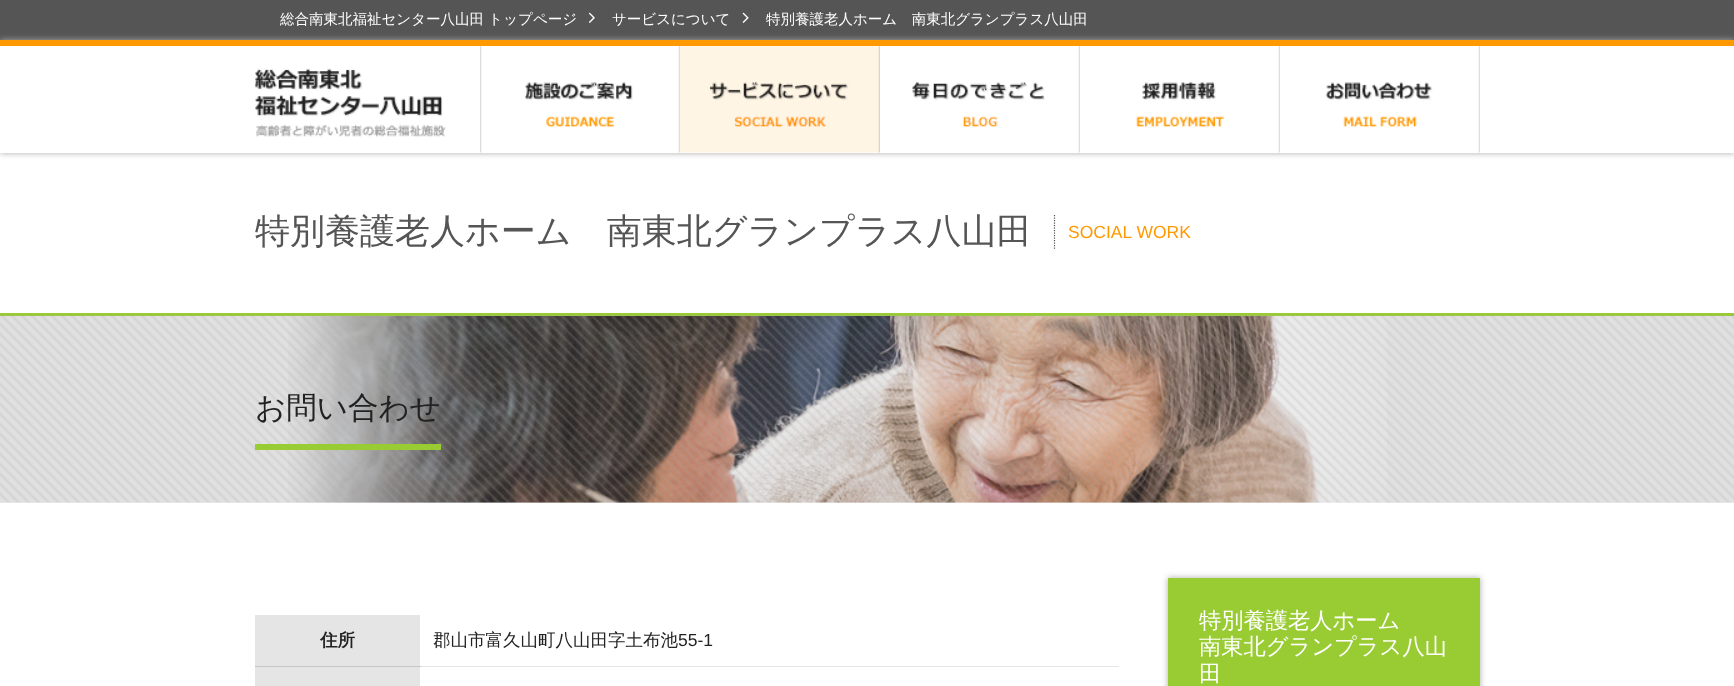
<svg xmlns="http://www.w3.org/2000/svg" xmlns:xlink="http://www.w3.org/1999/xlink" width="1734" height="686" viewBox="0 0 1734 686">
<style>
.cls-1{font:500 14.5px WenQuanYi Zen Hei;fill:#ffffff}
.cls-2{font:500 35px WenQuanYi Zen Hei;fill:#555555}
.cls-3{font:17.5px Liberation Sans;fill:#ff9900}
.cls-4{font:500 30.5px WenQuanYi Zen Hei;fill:#222222}
.cls-5{font:bold 17.5px WenQuanYi Zen Hei;fill:#222222}
.cls-6{font:500 17.5px WenQuanYi Zen Hei;fill:#222222}
.cls-7{font:17.5px Liberation Sans;fill:#222222}
.cls-8{font:500 22.25px WenQuanYi Zen Hei;fill:#ffffff}
</style>
<rect width="100%" height="100%" fill="#ffffff"/>
<rect fill="#555555" x="0" y="0" width="1734" height="40"/>
<image xlink:href="image0.png" x="588" y="12" width="7" height="11"/>
<image xlink:href="image1.png" x="742" y="12" width="7" height="11"/>
<rect fill="#aaaaaa" filter="blur(3px)" x="0" y="40" width="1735" height="113"/>
<rect fill="#ffffff" x="0" y="46" width="1734" height="107"/>
<rect fill="#ff9900" x="0" y="40" width="1734" height="6"/>
<image xlink:href="image2.png" x="255" y="68" width="191" height="69"/>
<image xlink:href="image3.png" x="480" y="46" width="200" height="107"/>
<image xlink:href="image4.png" x="680" y="46" width="200" height="107"/>
<image xlink:href="image5.png" x="911" y="46" width="169" height="107"/>
<image xlink:href="image6.png" x="1136" y="46" width="144" height="107"/>
<image xlink:href="image7.png" x="1326" y="46" width="154" height="107"/>
<path fill="none" stroke="#555555" stroke-width="1.2" stroke-dasharray="1.25 1.25" d="M1054.5 215V250"/>
<rect fill="#eeeeee" x="0" y="316" width="1734" height="187"/>
<image xlink:href="image8.png" x="288" y="316" width="1099" height="187"/>
<rect fill="#99cc33" x="0" y="313" width="1734" height="3"/>
<image xlink:href="image9.png" x="0" y="315" width="1734" height="188"/>
<rect fill="#99cc33" x="255" y="444" width="186" height="6"/>
<rect fill="#e5e5e5" x="255" y="615" width="165" height="51"/>
<rect fill="#e5e5e5" x="420" y="666" width="699" height="1"/>
<rect fill="#c6c6c6" x="255" y="666" width="166" height="1"/>
<rect fill="#e5e5e5" x="255" y="667" width="165" height="19"/>
<rect fill="#aaaaaa" filter="blur(3px)" x="1168" y="578" width="312" height="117"/>
<rect fill="#99cc33" x="1168" y="578" width="312" height="108"/>
<text class="cls-1" x="280" y="24">総合南東北福祉センター八山田 トップページ</text>
<text class="cls-1" x="612" y="24">サービスについて</text>
<text class="cls-1" x="766" y="24">特別養護老人ホーム　南東北グランプラス八山田</text>
<text class="cls-2" x="255" y="243">特別養護老人ホーム　南東北グランプラス八山田</text>
<text class="cls-3" x="1068" y="238">SOCIAL WORK</text>
<text class="cls-4" x="255" y="418">お問い合わせ</text>
<text class="cls-5" x="320" y="646">住所</text>
<text class="cls-6" x="433" y="646">郡山市富久山町八山田字土布池</text>
<text class="cls-7" x="678" y="646">55-1</text>
<text class="cls-8"><tspan x="1199" y="628">特別養護老人ホーム</tspan><tspan x="1199" y="654">南東北グランプラス八山</tspan><tspan x="1199" y="681">田</tspan></text>
</svg>
